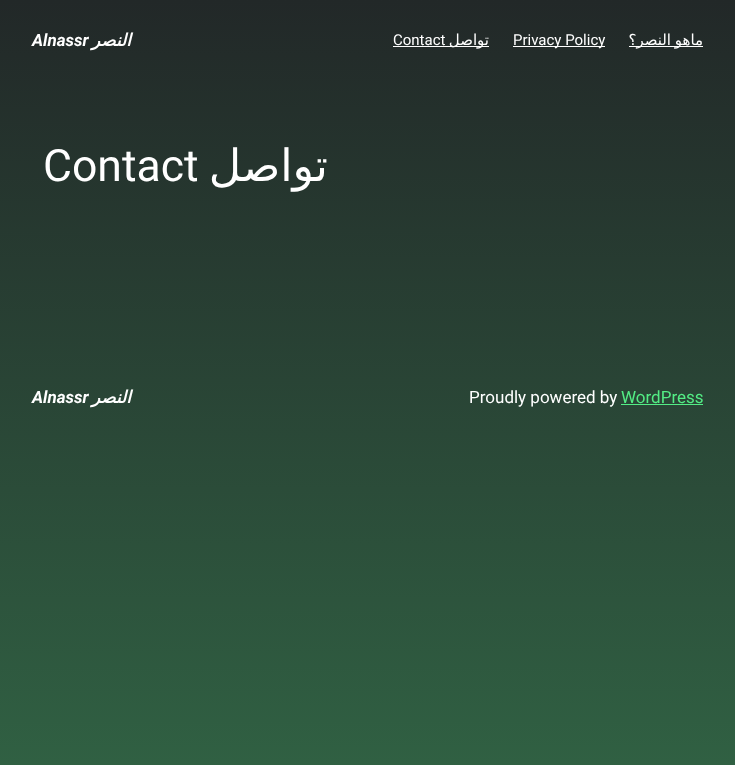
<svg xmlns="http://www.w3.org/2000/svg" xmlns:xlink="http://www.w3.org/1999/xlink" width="735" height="765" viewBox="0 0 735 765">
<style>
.cls-1{font:italic bold 17px Roboto;fill:#ffffff}
.cls-2{font:italic bold 17px DejaVu Sans;direction:rtl;fill:#ffffff}
.cls-3{font:15px Roboto;fill:#ffffff}
.cls-4{font:15px DejaVu Sans;direction:rtl;fill:#ffffff}
.cls-5{font:44.5px Roboto;fill:#ffffff}
.cls-6{font:44.5px DejaVu Sans;direction:rtl;fill:#ffffff}
.cls-7{font:17px Roboto;fill:#ffffff}
.cls-8{font:17px Roboto;fill:#53ed85}
</style>
<defs>
<linearGradient id="g1" gradientUnits="userSpaceOnUse" x1="367" y1="0" x2="368" y2="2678"><stop offset="0" stop-color="#222828"/><stop offset="1" stop-color="#53ed85"/></linearGradient>
</defs>
<rect width="100%" height="100%" fill="#ffffff"/>
<rect fill="url(#g1)" x="0" y="0" width="735" height="765"/>
<rect fill="#ffffff" x="393" y="46" width="96" height="1"/>
<rect fill="#ffffff" x="513" y="46" width="92" height="1"/>
<rect fill="#ffffff" x="629" y="46" width="74" height="1"/>
<rect fill="#53ed85" x="621" y="404" width="82" height="1"/>
<text class="cls-1" x="32" y="46">Alnassr</text>
<text class="cls-2" x="131" y="46">النصر</text>
<text class="cls-3" x="393" y="45">Contact</text>
<text class="cls-4" x="489" y="45">تواصل</text>
<text class="cls-3" x="513" y="45">Privacy Policy</text>
<text class="cls-4" x="703" y="45" word-spacing="-1">ماهو النصر؟</text>
<text class="cls-5" x="43" y="181">Contact</text>
<text class="cls-6" x="328" y="181">تواصل</text>
<text class="cls-1" x="32" y="403">Alnassr</text>
<text class="cls-2" x="131" y="403">النصر</text>
<text class="cls-7" x="469" y="403">Proudly powered by</text>
<text class="cls-8" x="621" y="403">WordPress</text>
</svg>
